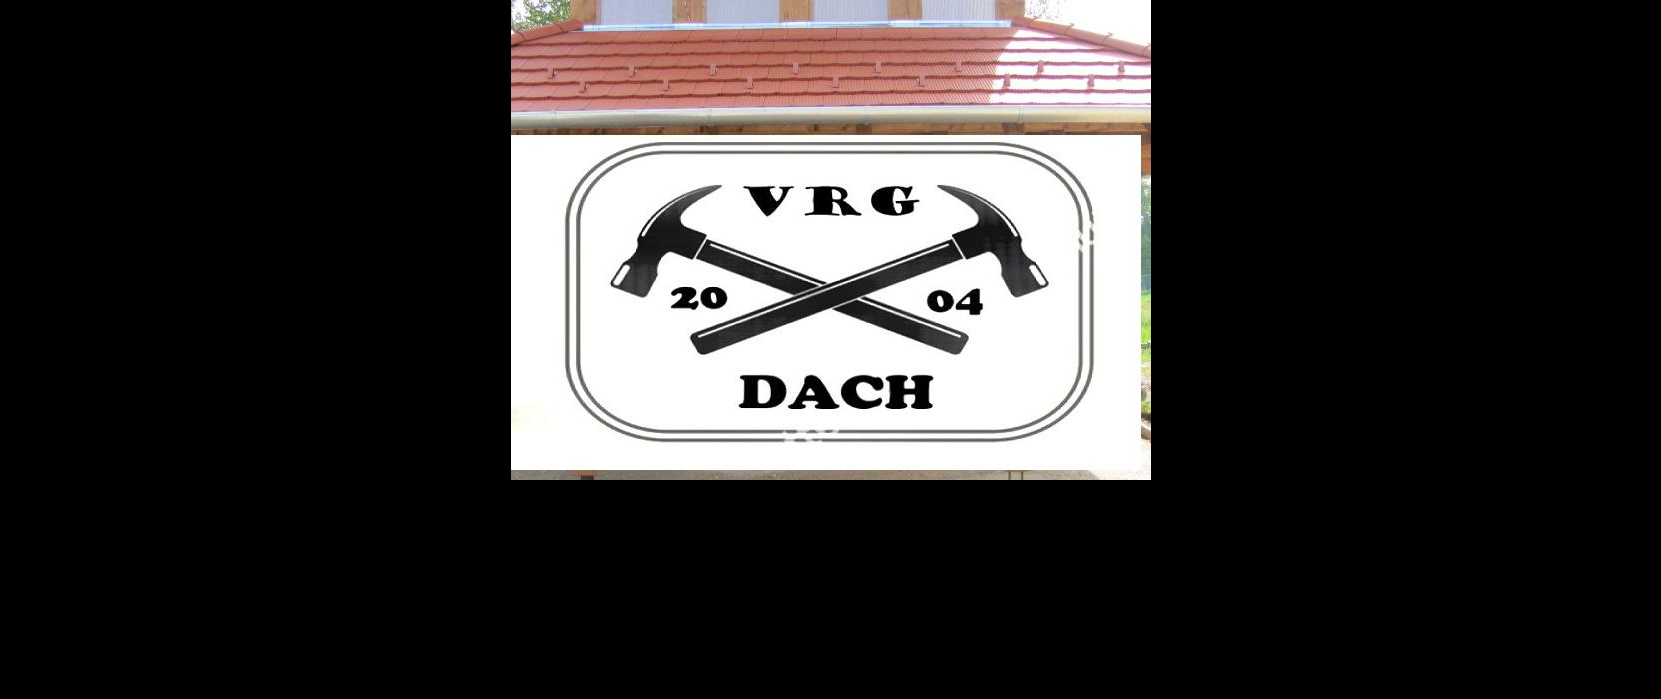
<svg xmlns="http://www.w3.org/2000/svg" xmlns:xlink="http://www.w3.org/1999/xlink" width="1661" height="699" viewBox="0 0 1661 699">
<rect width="100%" height="100%" fill="#000000"/>
<image xlink:href="image0.png" x="511" y="0" width="640" height="480"/>
</svg>
